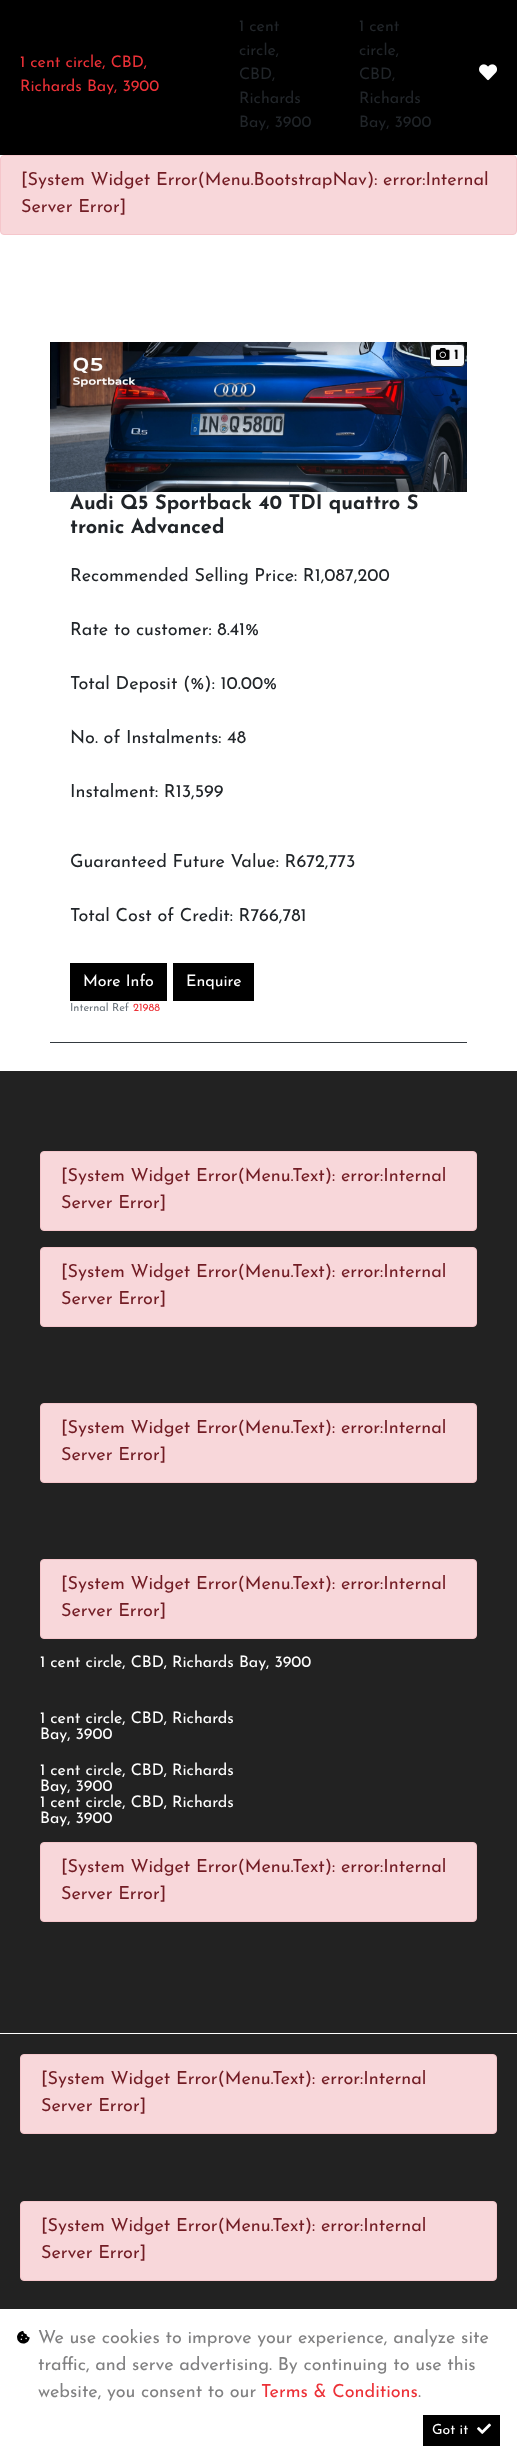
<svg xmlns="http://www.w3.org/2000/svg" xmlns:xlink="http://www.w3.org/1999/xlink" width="517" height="2463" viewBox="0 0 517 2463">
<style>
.cls-1{font:16px Josefin Sans;fill:#ec3137}
.cls-2{font:16px Josefin Sans;fill:#212529}
.cls-3{font:18px Josefin Sans;fill:#721c24}
.cls-4{font:bold 14px Josefin Sans;fill:#000000}
.cls-5{font:bold 20px Josefin Sans;fill:#212529}
.cls-6{font:18px Josefin Sans;fill:#212529}
.cls-7{font:16px Josefin Sans;fill:#ffffff}
.cls-8{font:11px Josefin Sans;fill:#6c757d}
.cls-9{font:11px Josefin Sans;fill:#ec3137}
.cls-10{font:18px Josefin Sans;fill:#818182}
.cls-11{font:18px Josefin Sans;fill:#ec3137}
.cls-12{font:14px Josefin Sans;fill:#ffffff}
</style>
<rect width="100%" height="100%" fill="#ffffff"/>
<rect fill="#000000" x="0" y="0" width="517" height="155"/>
<image xlink:href="image0.png" x="479" y="64" width="18" height="17"/>
<rect fill="#f8d7da" stroke="#f5c6cb" x="0.5" y="155.5" width="516" height="79" rx="3.5"/>
<rect fill="#343a40" x="50" y="1042" width="417" height="1"/>
<image xlink:href="image1.png" x="50" y="342" width="417" height="150"/>
<rect fill="#f8f9fa" stroke="#212529" x="430.5" y="344.5" width="34" height="22" rx="3.5"/>
<image xlink:href="image2.png" x="436" y="348" width="14" height="12"/>
<rect fill="#000000" x="70" y="963" width="97" height="38"/>
<rect fill="#000000" x="173" y="963" width="81" height="38"/>
<rect fill="#222222" x="0" y="1071" width="517" height="1238"/>
<rect fill="#f8d7da" stroke="#f5c6cb" x="40.5" y="1151.5" width="436" height="79" rx="3.5"/>
<rect fill="#f8d7da" stroke="#f5c6cb" x="40.5" y="1247.5" width="436" height="79" rx="3.5"/>
<rect fill="#f8d7da" stroke="#f5c6cb" x="40.5" y="1403.5" width="436" height="79" rx="3.5"/>
<rect fill="#f8d7da" stroke="#f5c6cb" x="40.5" y="1559.5" width="436" height="79" rx="3.5"/>
<rect fill="#f8d7da" stroke="#f5c6cb" x="40.5" y="1842.5" width="436" height="79" rx="3.5"/>
<rect fill="#ffffff" x="0" y="2033" width="517" height="1"/>
<rect fill="#f8d7da" stroke="#f5c6cb" x="20.5" y="2054.5" width="476" height="79" rx="3.5"/>
<rect fill="#f8d7da" stroke="#f5c6cb" x="20.5" y="2201.5" width="476" height="79" rx="3.5"/>
<image xlink:href="image3.png" x="17" y="2331" width="13" height="13"/>
<rect fill="#000000" x="423" y="2415" width="77" height="31"/>
<image xlink:href="image4.png" x="477" y="2423" width="14" height="11"/>
<text class="cls-1"><tspan x="20" y="67">1 cent circle, CBD,</tspan><tspan x="20" y="91">Richards Bay, 3900</tspan></text>
<text class="cls-2"><tspan x="239" y="31">1 cent</tspan><tspan x="239" y="55">circle,</tspan><tspan x="239" y="79">CBD,</tspan><tspan x="239" y="103">Richards</tspan><tspan x="239" y="127">Bay, 3900</tspan></text>
<text class="cls-2"><tspan x="359" y="31">1 cent</tspan><tspan x="359" y="55">circle,</tspan><tspan x="359" y="79">CBD,</tspan><tspan x="359" y="103">Richards</tspan><tspan x="359" y="127">Bay, 3900</tspan></text>
<text class="cls-3"><tspan x="21" y="185">[System Widget Error(Menu.BootstrapNav): error:Internal</tspan><tspan x="21" y="212">Server Error]</tspan></text>
<text class="cls-4" x="454" y="359">1</text>
<text class="cls-5"><tspan x="70" y="509">Audi Q5 Sportback 40 TDI quattro S</tspan><tspan x="70" y="533">tronic Advanced</tspan></text>
<text class="cls-6" x="70" y="581">Recommended Selling Price: R1,087,200</text>
<text class="cls-6" x="70" y="635">Rate to customer: 8.41%</text>
<text class="cls-6" x="70" y="689">Total Deposit (%): 10.00%</text>
<text class="cls-6" x="70" y="743">No. of Instalments: 48</text>
<text class="cls-6" x="70" y="797">Instalment: R13,599</text>
<text class="cls-6" x="70" y="867">Guaranteed Future Value: R672,773</text>
<text class="cls-6" x="70" y="921">Total Cost of Credit: R766,781</text>
<text class="cls-7" x="83" y="986">More Info</text>
<text class="cls-7" x="186" y="986">Enquire</text>
<text class="cls-8" x="70" y="1011">Internal Ref</text>
<text class="cls-9" x="133" y="1011">21988</text>
<text class="cls-3"><tspan x="61" y="1181">[System Widget Error(Menu.Text): error:Internal</tspan><tspan x="61" y="1208">Server Error]</tspan></text>
<text class="cls-3"><tspan x="61" y="1277">[System Widget Error(Menu.Text): error:Internal</tspan><tspan x="61" y="1304">Server Error]</tspan></text>
<text class="cls-3"><tspan x="61" y="1433">[System Widget Error(Menu.Text): error:Internal</tspan><tspan x="61" y="1460">Server Error]</tspan></text>
<text class="cls-3"><tspan x="61" y="1589">[System Widget Error(Menu.Text): error:Internal</tspan><tspan x="61" y="1616">Server Error]</tspan></text>
<text class="cls-7" x="40" y="1667">1 cent circle, CBD, Richards Bay, 3900</text>
<text class="cls-7"><tspan x="40" y="1723">1 cent circle, CBD, Richards</tspan><tspan x="40" y="1739">Bay, 3900</tspan></text>
<text class="cls-7"><tspan x="40" y="1775">1 cent circle, CBD, Richards</tspan><tspan x="40" y="1791">Bay, 3900</tspan><tspan x="40" y="1807">1 cent circle, CBD, Richards</tspan><tspan x="40" y="1823">Bay, 3900</tspan></text>
<text class="cls-3"><tspan x="61" y="1872">[System Widget Error(Menu.Text): error:Internal</tspan><tspan x="61" y="1899">Server Error]</tspan></text>
<text class="cls-3"><tspan x="41" y="2084">[System Widget Error(Menu.Text): error:Internal</tspan><tspan x="41" y="2111">Server Error]</tspan></text>
<text class="cls-3"><tspan x="41" y="2231">[System Widget Error(Menu.Text): error:Internal</tspan><tspan x="41" y="2258">Server Error]</tspan></text>
<text class="cls-10"><tspan x="38" y="2343">We use cookies to improve your experience, analyze site</tspan><tspan x="38" y="2370">traffic, and serve advertising. By continuing to use this</tspan><tspan x="38" y="2397">website, you consent to our</tspan></text>
<text class="cls-11" x="261" y="2397">Terms &amp; Conditions</text>
<text class="cls-10" x="418" y="2397">.</text>
<text class="cls-12" x="432" y="2434">Got it</text>
</svg>
